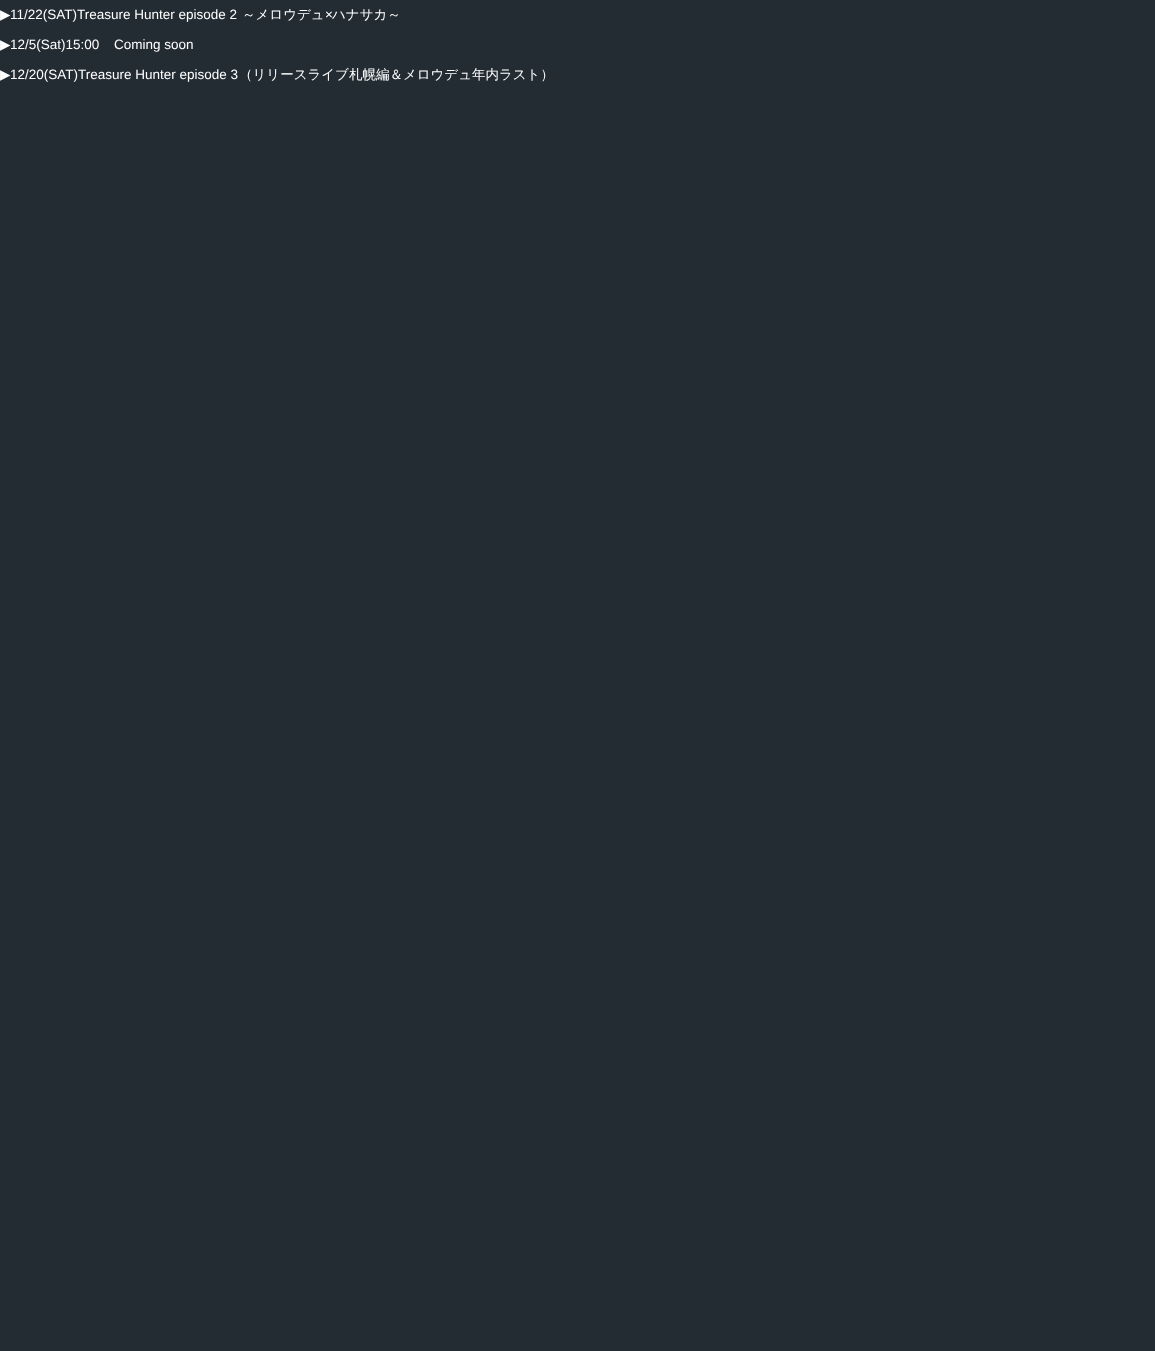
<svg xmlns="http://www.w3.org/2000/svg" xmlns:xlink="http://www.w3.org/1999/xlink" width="1155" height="1351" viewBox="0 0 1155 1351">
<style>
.cls-1{font:13.5px DejaVu Sans;fill:#ffffff}
.cls-2{font:13.5px Liberation Sans;fill:#ffffff}
.cls-3{font:500 13.5px WenQuanYi Zen Hei;fill:#ffffff}
</style>
<rect width="100%" height="100%" fill="#242c33"/>
<text class="cls-1" x="0" y="19">▶︎</text>
<text class="cls-2" x="10" y="19">11/22(SAT)Treasure Hunter episode 2</text>
<text class="cls-3" x="242" y="19">～メロウデュ</text>
<text class="cls-2" x="325" y="19">×</text>
<text class="cls-3" x="332" y="19">ハナサカ～</text>
<text class="cls-1" x="0" y="49">▶︎</text>
<text class="cls-2" x="10" y="49">12/5(Sat)15:00</text>
<text class="cls-2" x="114" y="49">Coming soon</text>
<text class="cls-1" x="0" y="79">▶︎</text>
<text class="cls-2" x="10" y="79">12/20(SAT)Treasure Hunter episode 3</text>
<text class="cls-3" x="239" y="79">（リリースライブ札幌編＆メロウデュ年内ラスト）</text>
</svg>
